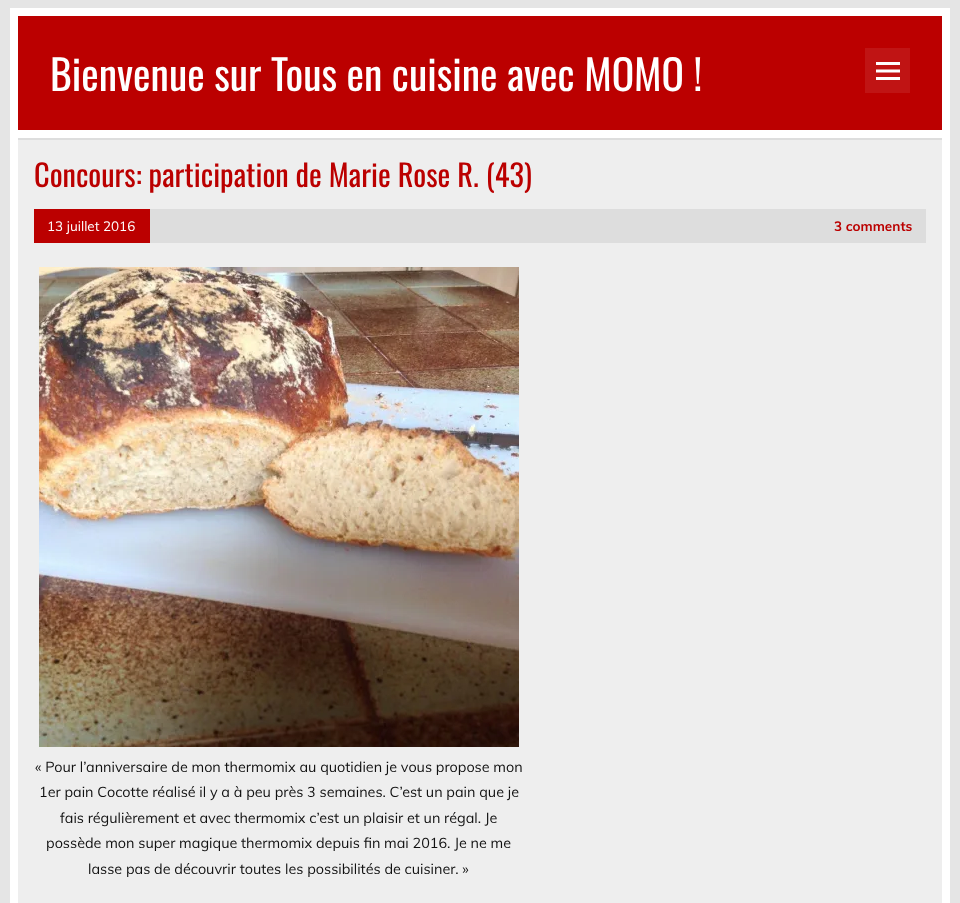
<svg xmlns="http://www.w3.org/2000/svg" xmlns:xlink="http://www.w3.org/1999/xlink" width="960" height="903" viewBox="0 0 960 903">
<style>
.cls-1{font:41.6px Oswald;fill:#ffffff}
.cls-2{font:30.4px Oswald;fill:#bb0000}
.cls-3{font:13.5px Muli;fill:#ffffff}
.cls-4{font:bold 13.5px Muli;fill:#bb0000}
.cls-5{font:14.4px Muli;fill:#111111}
</style>
<rect width="100%" height="100%" fill="#e5e5e5"/>
<rect fill="#ffffff" x="10" y="8" width="940" height="895"/>
<rect fill="#bb0000" x="18" y="16" width="924" height="114"/>
<rect fill="#c01414" x="865" y="48" width="45" height="45"/>
<image xlink:href="image0.png" x="876" y="62" width="24" height="18"/>
<rect fill="#eeeeee" x="18" y="140" width="924" height="763"/>
<rect fill="#dddddd" x="18" y="138" width="924" height="2"/>
<rect fill="#dddddd" x="150" y="209" width="776" height="34"/>
<rect fill="#bb0000" x="34" y="209" width="116" height="34"/>
<image xlink:href="image1.png" x="39" y="267" width="480" height="480"/>
<text class="cls-1" x="50" y="91">Bienvenue sur Tous en cuisine avec MOMO !</text>
<text class="cls-2" x="34" y="187">Concours: participation de Marie Rose R. (43)</text>
<text class="cls-3" x="47" y="231">13 juillet 2016</text>
<text class="cls-4" x="834" y="231">3 comments</text>
<text class="cls-5" x="35" y="772">« Pour l’anniversaire de mon thermomix au quotidien je vous propose mon</text>
<text class="cls-5" x="39" y="797">1er pain Cocotte réalisé il y a à peu près 3 semaines. C’est un pain que je</text>
<text class="cls-5" x="60" y="823">fais régulièrement et avec thermomix c’est un plaisir et un régal. Je</text>
<text class="cls-5" x="46" y="848">possède mon super magique thermomix depuis fin mai 2016. Je ne me</text>
<text class="cls-5" x="88" y="874">lasse pas de découvrir toutes les possibilités de cuisiner. »</text>
</svg>
